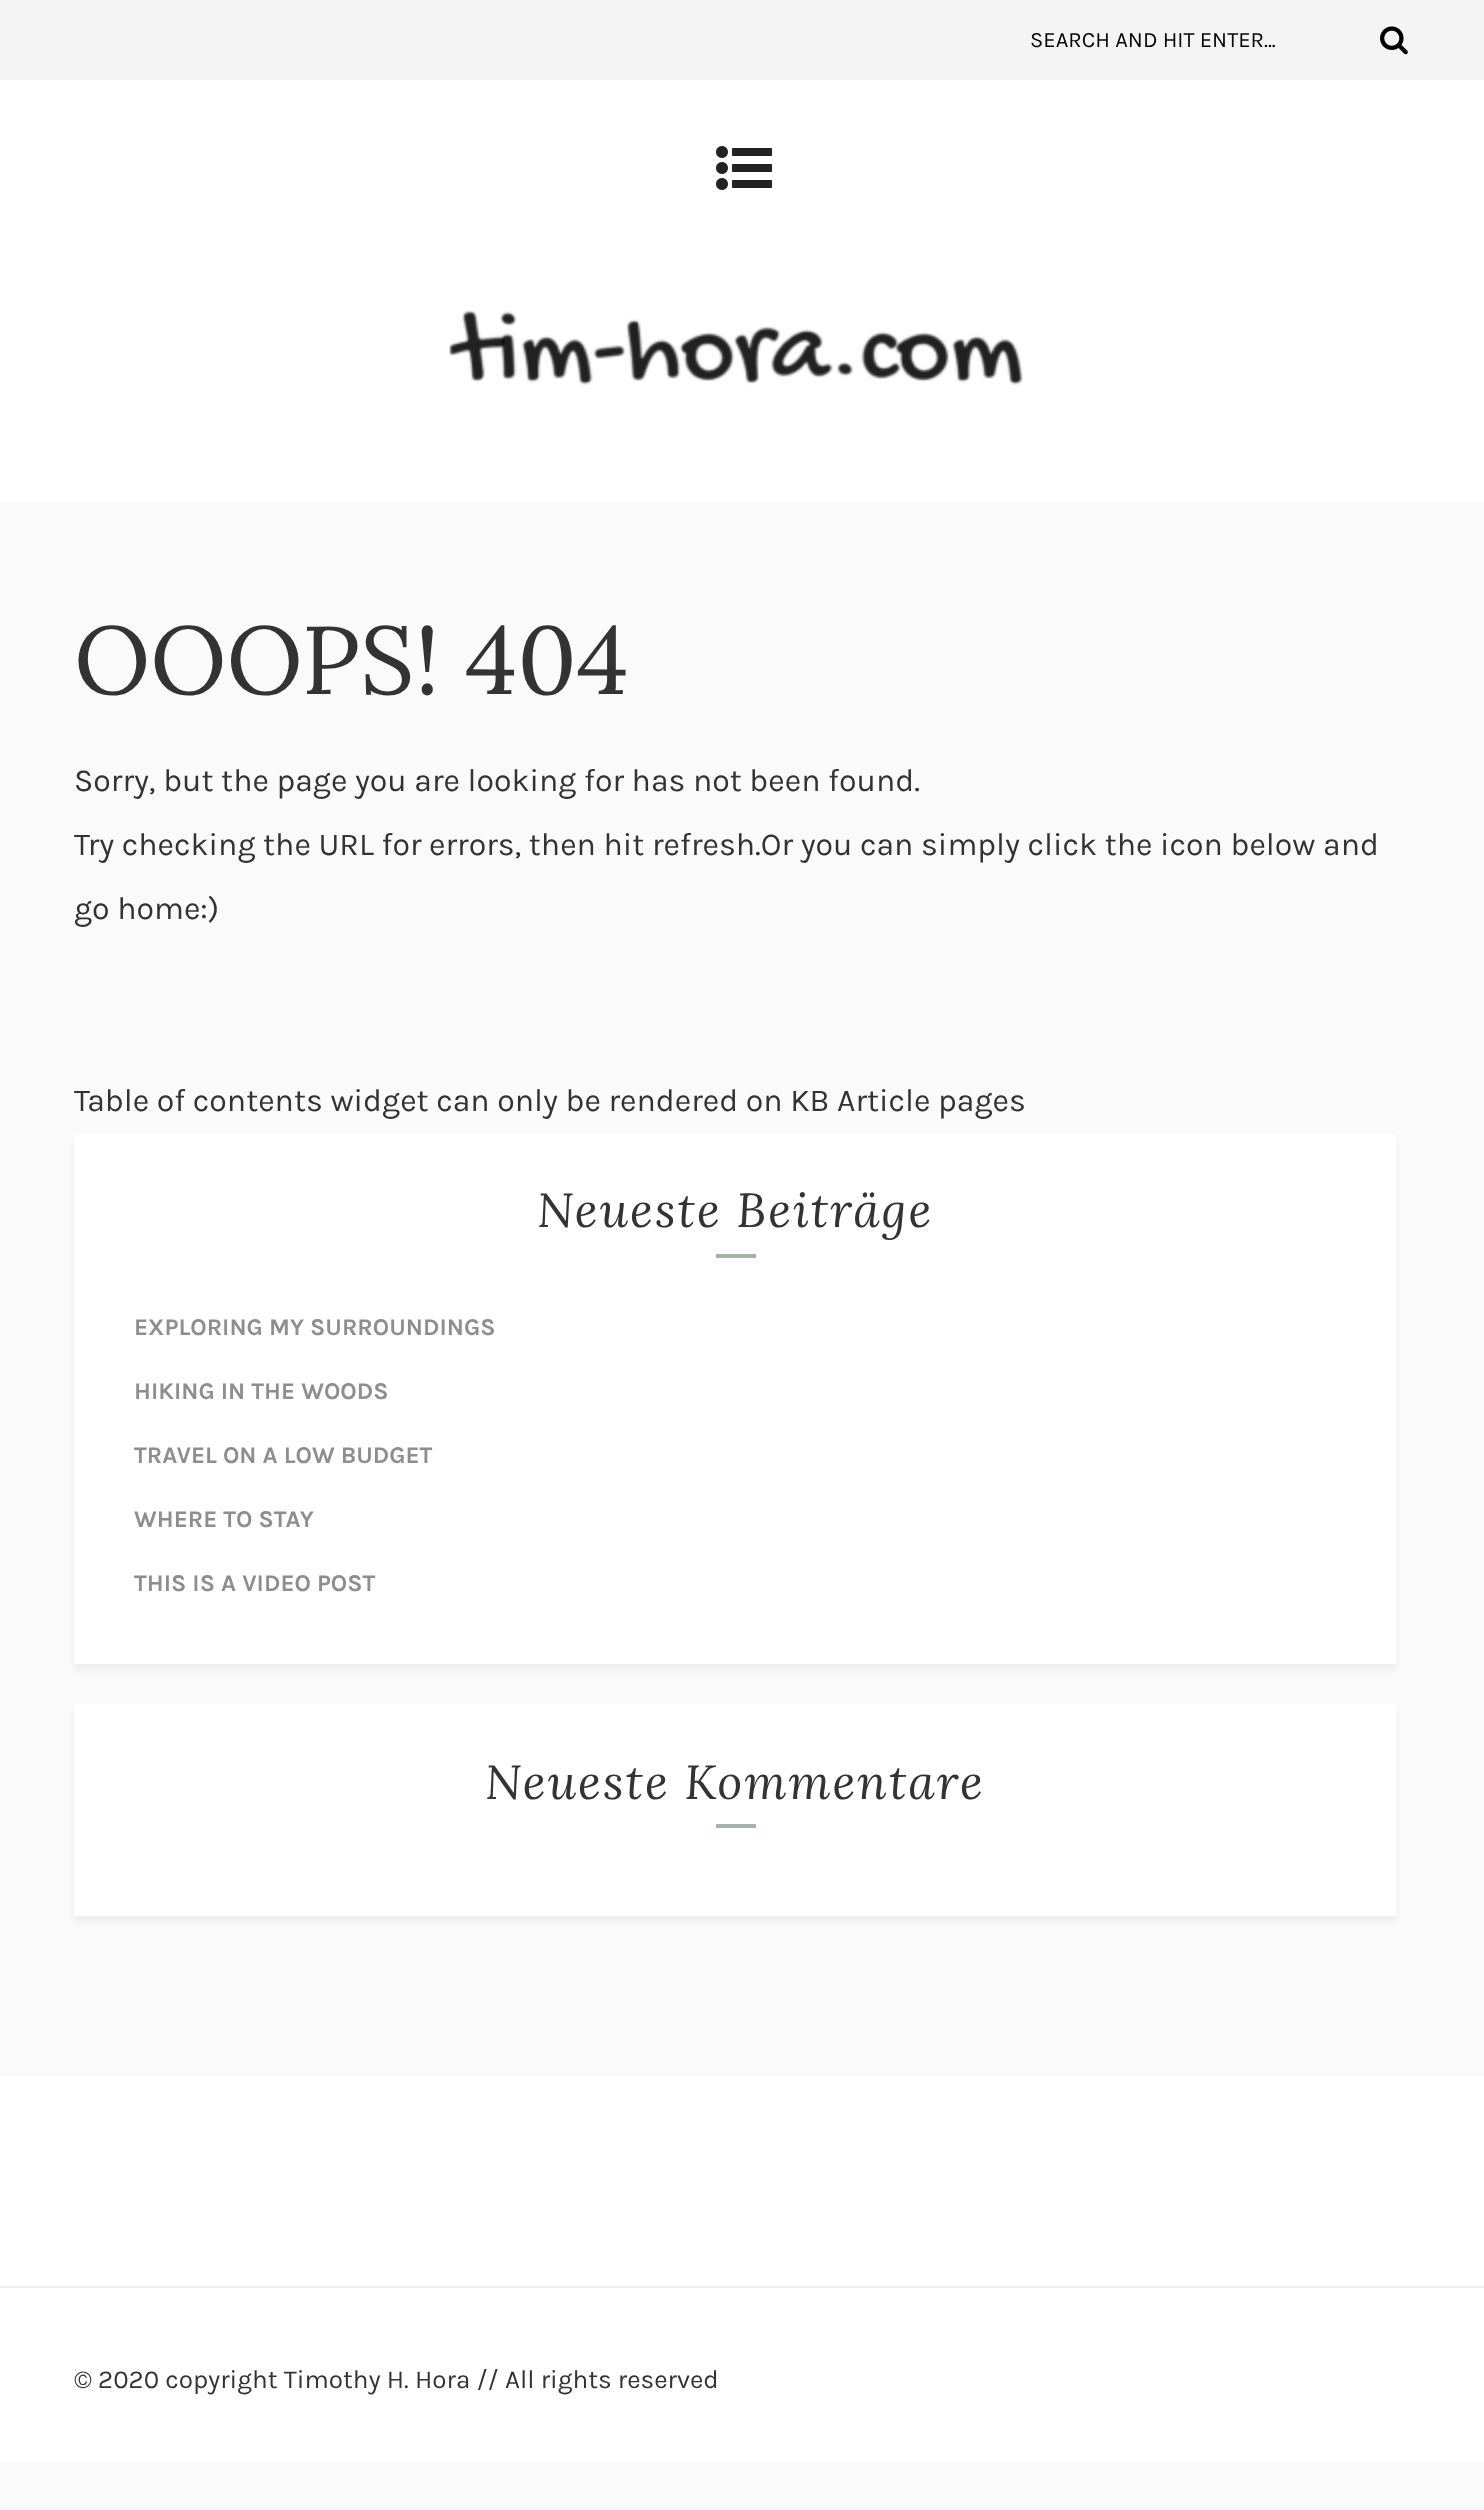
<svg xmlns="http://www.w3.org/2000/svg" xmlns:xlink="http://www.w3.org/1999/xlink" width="1484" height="2510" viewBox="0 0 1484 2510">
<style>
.cls-1{font:22px Karla;fill:#000000}
.cls-2{font:96px Lora;fill:#333333}
.cls-3{font:32px Karla;fill:#333333}
.cls-4{font:italic 48px Lora;letter-spacing:2px;fill:#333333}
.cls-5{font:bold 24px Karla;fill:#8e8e8e}
.cls-6{font:26px Karla;fill:#333333}
</style>
<rect width="100%" height="100%" fill="#fafafa"/>
<rect fill="#f4f4f4" x="0" y="0" width="1484" height="80"/>
<image xlink:href="image0.png" x="1380" y="26" width="28" height="29"/>
<rect fill="#ffffff" x="0" y="80" width="1484" height="422"/>
<image xlink:href="image1.png" x="716" y="146" width="56" height="44"/>
<image xlink:href="image2.png" x="449" y="310" width="574" height="75"/>
<rect fill="#000000" fill-opacity="0.05" filter="blur(3px)" x="74" y="1140" width="1322" height="530"/>
<rect fill="#ffffff" x="74" y="1134" width="1322" height="530"/>
<rect fill="#a3b5a7" x="716" y="1254" width="40" height="4"/>
<rect fill="#000000" fill-opacity="0.05" filter="blur(3px)" x="74" y="1710" width="1322" height="212"/>
<rect fill="#ffffff" x="74" y="1704" width="1322" height="212"/>
<rect fill="#a3b5a7" x="716" y="1824" width="40" height="4"/>
<rect fill="#ffffff" x="0" y="2076" width="1484" height="210"/>
<rect fill="#ffffff" x="0" y="2288" width="1484" height="174"/>
<rect fill="#eeeeee" x="0" y="2286" width="1484" height="2"/>
<text class="cls-1" x="1030" y="47">SEARCH AND HIT ENTER...</text>
<text class="cls-2" x="74" y="694">OOOPS! 404</text>
<text class="cls-3" x="74" y="791">Sorry, but the page you are looking for has not been found.</text>
<text class="cls-3" x="74" y="855">Try checking the URL for errors, then hit refresh.Or you can simply click the icon below and</text>
<text class="cls-3" x="74" y="919">go home:)</text>
<text class="cls-3" x="74" y="1111">Table of contents widget can only be rendered on KB Article pages</text>
<text class="cls-4" x="537" y="1227">Neueste Beiträge</text>
<text class="cls-5" x="134" y="1335">EXPLORING MY SURROUNDINGS</text>
<text class="cls-5" x="134" y="1399">HIKING IN THE WOODS</text>
<text class="cls-5" x="134" y="1463">TRAVEL ON A LOW BUDGET</text>
<text class="cls-5" x="134" y="1527">WHERE TO STAY</text>
<text class="cls-5" x="134" y="1591">THIS IS A VIDEO POST</text>
<text class="cls-4" x="485" y="1799">Neueste Kommentare</text>
<text class="cls-6" x="74" y="2388">© 2020 copyright Timothy H. Hora // All rights reserved</text>
</svg>
